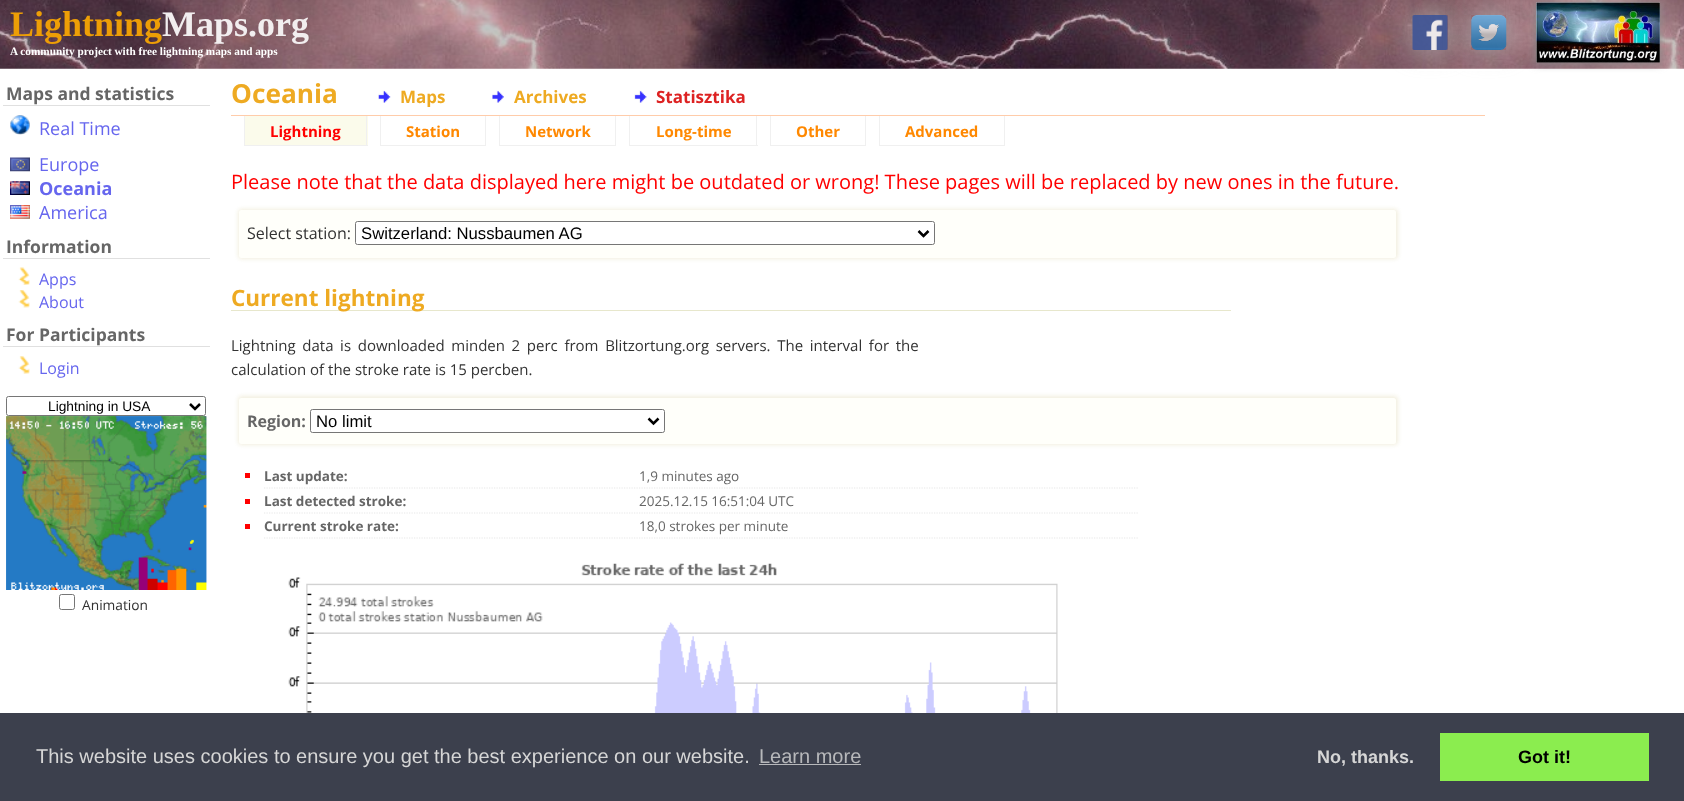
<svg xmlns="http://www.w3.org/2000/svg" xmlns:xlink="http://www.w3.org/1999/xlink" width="1684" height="801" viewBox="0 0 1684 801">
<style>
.cls-1{font:bold 36px Liberation Serif;fill:#ed9e06}
.cls-2{font:bold 36px Liberation Serif;fill:#f2eeef}
.cls-3{font:bold 11.25px Liberation Serif;fill:#ffffff}
.cls-4{font:bold 17.5px Open Sans;fill:#666666}
.cls-5{font:18px Open Sans;fill:#6666ee}
.cls-6{font:bold 18px Open Sans;fill:#6666ee}
.cls-7{font:16px Open Sans;fill:#6666ee}
.cls-8{font:13.75px Liberation Sans;fill:#000000}
.cls-9{font:13.75px Open Sans;fill:#333333}
.cls-10{font:bold 26.25px Open Sans;fill:#eeaa22}
.cls-11{font:bold 17px Open Sans;fill:#eeaa22}
.cls-12{font:bold 17px Open Sans;fill:#dd2222}
.cls-13{font:bold 15px Open Sans;fill:#ff0000}
.cls-14{font:bold 15px Open Sans;fill:#ff8800}
.cls-15{font:20px Open Sans;fill:#ff0000}
.cls-16{font:16px Open Sans;fill:#333333}
.cls-17{font:16.7px Liberation Sans;fill:#000000}
.cls-18{font:bold 22.5px Open Sans;fill:#eeaa22}
.cls-19{font:15px Open Sans;fill:#333333}
.cls-20{font:bold 16px Open Sans;fill:#666666}
.cls-21{font:bold 13.5px Open Sans;fill:#666666}
.cls-22{font:13.5px Open Sans;fill:#666666}
.cls-23{font:20px Liberation Sans;fill:#d6d6d6}
.cls-24{font:20px Liberation Sans;fill:#b7b8bb}
.cls-25{font:bold 18px Liberation Sans;fill:#d6d6d6}
.cls-26{font:bold 18px Liberation Sans;fill:#000000}
</style>
<defs>
<clipPath id="clip1"><path d="M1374 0H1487V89H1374ZM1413 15H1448V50H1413Z" clip-rule="evenodd"/></clipPath>
<clipPath id="clip2"><path d="M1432 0H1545V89H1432ZM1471 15H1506V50H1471Z" clip-rule="evenodd"/></clipPath>
</defs>
<rect width="100%" height="100%" fill="#ffffff"/>
<image xlink:href="image0.png" x="0" y="0" width="1684" height="69"/>
<g clip-path="url(#clip1)">
<rect fill="#aaaaaa" fill-opacity="0.85" filter="blur(12.5px)" x="1413" y="15" width="35" height="35"/>
</g>
<image xlink:href="image1.png" x="1412" y="15" width="36" height="35"/>
<rect fill="#888888" filter="blur(5px)" x="1536" y="3" width="124" height="60"/>
<image xlink:href="image3.png" x="1536" y="2" width="124" height="61"/>
<g clip-path="url(#clip2)">
<rect fill="#aaaaaa" fill-opacity="0.85" filter="blur(12.5px)" x="1471" y="15" width="35" height="35"/>
</g>
<image xlink:href="image2.png" x="1471" y="15" width="36" height="35"/>
<rect fill="#e0e0e0" x="3" y="105" width="207" height="1"/>
<image xlink:href="image4.png" x="10" y="115" width="20" height="20"/>
<image xlink:href="image5.png" x="10" y="157" width="20" height="15"/>
<image xlink:href="image6.png" x="10" y="181" width="20" height="14"/>
<image xlink:href="image7.png" x="10" y="205" width="20" height="14"/>
<rect fill="#e0e0e0" x="3" y="258" width="207" height="1"/>
<image xlink:href="image8.png" x="18" y="267" width="12" height="18"/>
<image xlink:href="image9.png" x="18" y="290" width="12" height="18"/>
<rect fill="#e0e0e0" x="3" y="346" width="207" height="1"/>
<image xlink:href="image10.png" x="18" y="356" width="12" height="18"/>
<rect fill="none" stroke="#767676" x="6.5" y="396.5" width="199" height="19" rx="2"/>
<path fill="none" stroke="#000000" stroke-width="2.5" d="M190 404L195 409L200 404"/>
<image xlink:href="image11.png" x="6" y="416" width="201" height="174"/>
<image xlink:href="image12.png" x="6" y="416" width="201" height="174"/>
<rect fill="none" stroke="#767676" x="59.5" y="594.5" width="15" height="15" rx="2"/>
<rect fill="#ffffff" x="1417" y="69" width="85" height="2"/>
<rect fill="#ffccaa" x="231" y="115" width="1254" height="1"/>
<image xlink:href="image13.png" x="378" y="90" width="13" height="13"/>
<image xlink:href="image14.png" x="492" y="90" width="12" height="13"/>
<image xlink:href="image15.png" x="634" y="90" width="13" height="13"/>
<rect fill="#fbfbeb" x="245" y="116" width="123" height="29"/>
<rect fill="#f0f0f0" x="366" y="116" width="1" height="30"/>
<rect fill="#f0f0f0" x="244" y="145" width="124" height="1"/>
<rect fill="#f0f0f0" x="244" y="116" width="1" height="30"/>
<rect fill="#f0f0f0" x="485" y="116" width="1" height="30"/>
<rect fill="#f0f0f0" x="380" y="145" width="106" height="1"/>
<rect fill="#f0f0f0" x="380" y="116" width="1" height="30"/>
<rect fill="#f0f0f0" x="615" y="116" width="1" height="30"/>
<rect fill="#f0f0f0" x="499" y="145" width="117" height="1"/>
<rect fill="#f0f0f0" x="499" y="116" width="1" height="30"/>
<rect fill="#f0f0f0" x="756" y="116" width="1" height="30"/>
<rect fill="#f0f0f0" x="629" y="145" width="129" height="1"/>
<rect fill="#f0f0f0" x="629" y="116" width="1" height="30"/>
<rect fill="#f0f0f0" x="865" y="116" width="1" height="30"/>
<rect fill="#f0f0f0" x="770" y="145" width="96" height="1"/>
<rect fill="#f0f0f0" x="770" y="116" width="1" height="30"/>
<rect fill="#f0f0f0" x="1004" y="116" width="1" height="30"/>
<rect fill="#f0f0f0" x="879" y="145" width="126" height="1"/>
<rect fill="#f0f0f0" x="879" y="116" width="1" height="30"/>
<rect fill="#f2efdf" filter="blur(2px)" x="238" y="209" width="1160" height="50" rx="4"/>
<rect fill="#fffffa" x="239" y="210" width="1157" height="48" rx="2.5"/>
<rect fill="#ffffff" stroke="#767676" x="355.5" y="221.5" width="579" height="23" rx="2"/>
<path fill="none" stroke="#000000" stroke-width="2.5" d="M918.5 231L923.5 236L928.5 231"/>
<rect fill="#e7e7cc" x="231" y="310" width="1000" height="1"/>
<rect fill="#f2efdf" filter="blur(2px)" x="238" y="396" width="1160" height="49" rx="4"/>
<rect fill="#fffffa" x="239" y="398" width="1157" height="46" rx="2.5"/>
<rect fill="#ffffff" stroke="#767676" x="310.5" y="409.5" width="354" height="23" rx="2"/>
<path fill="none" stroke="#000000" stroke-width="2.5" d="M648.5 418.5L653.5 423.5L658.5 418.5"/>
<path fill="none" stroke="#e7e7e7" stroke-width="1.2" stroke-dasharray="1.25 1.25" d="M264 488H1139"/>
<rect fill="#ff0000" x="245" y="473" width="5" height="5"/>
<path fill="none" stroke="#e7e7e7" stroke-width="1.2" stroke-dasharray="1.25 1.25" d="M264 513H1139"/>
<rect fill="#ff0000" x="245" y="499" width="5" height="5"/>
<path fill="none" stroke="#e7e7e7" stroke-width="1.2" stroke-dasharray="1.25 1.25" d="M264 538H1139"/>
<rect fill="#ff0000" x="245" y="524" width="5" height="5"/>
<image xlink:href="image16.png" x="247" y="563" width="811" height="150"/>
<rect fill="#3c404d" x="0" y="713" width="1684" height="88"/>
<rect fill="#b7b8bb" x="759" y="764" width="102" height="1"/>
<rect fill="#8bed4f" x="1440" y="733" width="209" height="48"/>
<text class="cls-1" x="10" y="36">Lightning</text>
<text class="cls-2" x="162" y="36">Maps.org</text>
<text class="cls-3" x="10" y="55">A community project with free lightning maps and apps</text>
<text class="cls-4" x="6" y="100">Maps and statistics</text>
<text class="cls-5" x="39" y="135">Real Time</text>
<text class="cls-5" x="39" y="171">Europe</text>
<text class="cls-6" x="39" y="195">Oceania</text>
<text class="cls-5" x="39" y="219">America</text>
<text class="cls-4" x="6" y="253">Information</text>
<text class="cls-7"><tspan x="39" y="285">Apps</tspan><tspan x="39" y="308">About</tspan></text>
<text class="cls-4" x="6" y="341">For Participants</text>
<text class="cls-7" x="39" y="374">Login</text>
<text class="cls-8" x="48" y="411">Lightning in USA</text>
<text class="cls-9" x="82" y="610">Animation</text>
<text class="cls-10" x="231" y="103">Oceania</text>
<text class="cls-11" x="400" y="103">Maps</text>
<text class="cls-11" x="514" y="103">Archives</text>
<text class="cls-12" x="656" y="103">Statisztika</text>
<text class="cls-13" x="270" y="137">Lightning</text>
<text class="cls-14" x="406" y="137">Station</text>
<text class="cls-14" x="525" y="137">Network</text>
<text class="cls-14" x="656" y="137">Long-time</text>
<text class="cls-14" x="796" y="137">Other</text>
<text class="cls-14" x="905" y="137">Advanced</text>
<text class="cls-15" x="231" y="189">Please note that the data displayed here might be outdated or wrong! These pages will be replaced by new ones in the future.</text>
<text class="cls-16" x="247" y="239">Select station:</text>
<text class="cls-17" x="361" y="239">Switzerland: Nussbaumen AG</text>
<text class="cls-18" x="231" y="306">Current lightning</text>
<text class="cls-19"><tspan x="231" y="351" word-spacing="2.75">Lightning data is downloaded minden 2 perc from Blitzortung.org servers. The interval for the</tspan><tspan x="231" y="375">calculation of the stroke rate is 15 percben.</tspan></text>
<text class="cls-20" x="247" y="427">Region:</text>
<text class="cls-17" x="316" y="427">No limit</text>
<text class="cls-21" x="264" y="481">Last update:</text>
<text class="cls-22" x="639" y="481">1,9 minutes ago</text>
<text class="cls-21" x="264" y="506">Last detected stroke:</text>
<text class="cls-22" x="639" y="506">2025.12.15 16:51:04 UTC</text>
<text class="cls-21" x="264" y="531">Current stroke rate:</text>
<text class="cls-22" x="639" y="531">18,0 strokes per minute</text>
<text class="cls-23" x="36" y="763">This website uses cookies to ensure you get the best experience on our website.</text>
<text class="cls-24" x="759" y="763">Learn more</text>
<text class="cls-25" x="1317" y="763">No, thanks.</text>
<text class="cls-26" x="1518" y="763">Got it!</text>
</svg>
